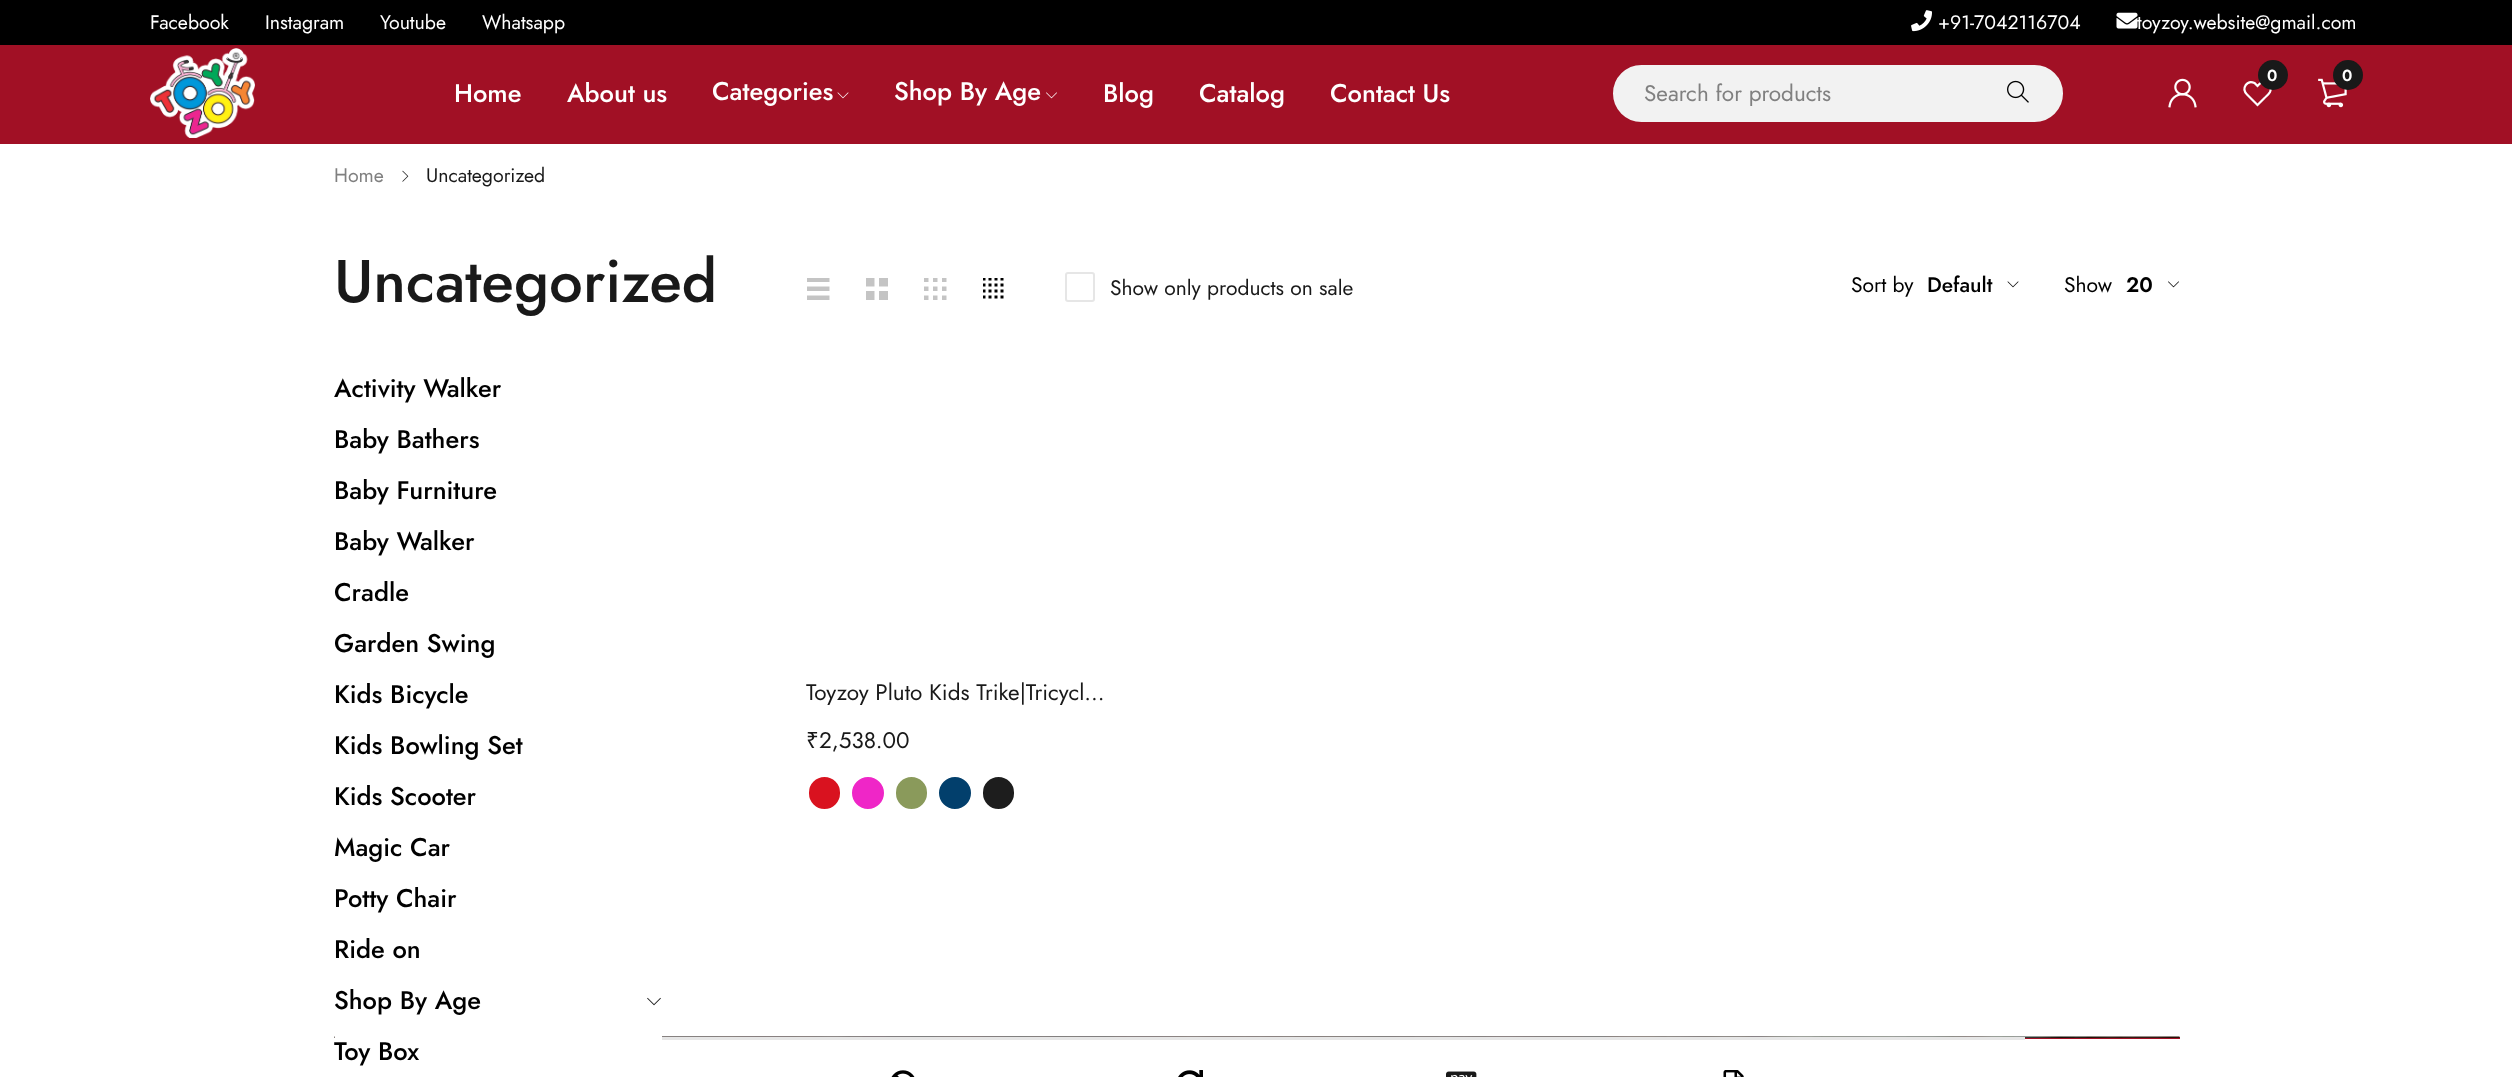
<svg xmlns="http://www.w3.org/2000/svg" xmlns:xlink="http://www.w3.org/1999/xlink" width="2512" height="1077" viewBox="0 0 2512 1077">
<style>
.cls-1{font:19.5px Jost;fill:#ffffff}
.cls-2{font:500 25.5px Jost;fill:#ffffff}
.cls-3{font:600 16px Jost;fill:#ffffff}
.cls-4{font:22.5px Jost;fill:#808080}
.cls-5{font:19.5px Jost;fill:#808080}
.cls-6{font:19.5px Jost;fill:#191919}
.cls-7{font:500 60px Jost;fill:#191919}
.cls-8{font:21px Jost;fill:#191919}
.cls-9{font:21px Jost;fill:#000000}
.cls-10{font:500 21px Jost;fill:#000000}
.cls-11{font:600 21px Jost;fill:#000000}
.cls-12{font:500 25.5px Jost;fill:#000000}
.cls-13{font:22.5px Jost;fill:#191919}
.cls-14{font:22.5px Noto Sans;fill:#191919}
</style>
<defs>
<clipPath id="clip1"><rect x="807" y="675" width="309" height="152"/></clipPath>
</defs>
<rect width="100%" height="100%" fill="#ffffff"/>
<rect fill="#000000" x="0" y="0" width="2512" height="45"/>
<image xlink:href="image0.png" x="1911" y="10" width="21" height="22"/>
<image xlink:href="image1.png" x="2116" y="12" width="22" height="17"/>
<rect fill="#a11025" x="0" y="45" width="2512" height="99"/>
<image xlink:href="image2.png" x="150" y="48" width="105" height="90"/>
<image xlink:href="image3.png" x="837" y="92" width="12" height="7"/>
<image xlink:href="image4.png" x="1046" y="92" width="11" height="7"/>
<path fill="none" stroke="#ffffff" stroke-width="2.2" d="M2247 94.5C2241 88.5 2247 79.5 2254.5 83L2257.5 86C2259 84.5 2260 83 2261.5 82.5C2267 80.5 2272.5 86.5 2270 92C2269 94 2266.5 96 2264.5 98L2257.5 105Z"/>
<circle fill="#191919" cx="2273" cy="75" r="15"/>
<image xlink:href="image5.png" x="2318" y="78" width="29" height="30"/>
<circle fill="#191919" cx="2348" cy="75" r="15"/>
<rect fill="#f2f2f2" stroke="#f2f2f2" stroke-width="2" x="1614" y="66" width="448" height="55" rx="27.5"/>
<image xlink:href="image6.png" x="2007" y="80" width="22" height="23"/>
<image xlink:href="image7.png" x="2168" y="78" width="29" height="30"/>
<image xlink:href="image8.png" x="402" y="170" width="7" height="12"/>
<image xlink:href="image9.png" x="807" y="278" width="23" height="22"/>
<image xlink:href="image10.png" x="866" y="278" width="22" height="22"/>
<image xlink:href="image11.png" x="924" y="278" width="23" height="22"/>
<image xlink:href="image12.png" x="983" y="278" width="21" height="21"/>
<rect fill="none" stroke="#e6e6e6" stroke-width="2" x="1066" y="273" width="28" height="28" rx="2"/>
<image xlink:href="image13.png" x="2007" y="281" width="12" height="7"/>
<image xlink:href="image14.png" x="2168" y="281" width="11" height="7"/>
<rect fill="#a11025" x="2025" y="1037" width="155" height="2"/>
<image xlink:href="image16.png" x="334" y="1036" width="1846" height="2"/>
<rect fill="#ffffff" x="335" y="1036" width="327" height="2"/>
<image xlink:href="image15.png" x="647" y="997" width="14" height="9"/>
<rect fill="#d9121f" x="807" y="776" width="35" height="34" rx="17"/>
<g clip-path="url(#clip1)">
<rect fill="none" stroke="#ffffff" stroke-width="3" x="807.5" y="775.5" width="34" height="35" rx="17"/>
</g>
<circle fill="#ef26c7" stroke="#ffffff" stroke-width="3" cx="868" cy="793" r="17.5"/>
<rect fill="#8a9a5b" stroke="#ffffff" stroke-width="3" x="894.5" y="775.5" width="34" height="35" rx="17"/>
<circle fill="#023f6c" stroke="#ffffff" stroke-width="3" cx="955" cy="793" r="17.5"/>
<rect fill="#1d1d1d" stroke="#ffffff" stroke-width="3" x="981.5" y="775.5" width="34" height="35" rx="17"/>
<rect fill="#e6e6e6" x="662" y="1037" width="1363" height="3"/>
<image xlink:href="image17.png" x="891" y="1070" width="24" height="7"/>
<image xlink:href="image18.png" x="1178" y="1070" width="25" height="7"/>
<image xlink:href="image19.png" x="1446" y="1071" width="31" height="6"/>
<image xlink:href="image20.png" x="1723" y="1070" width="21" height="7"/>
<text class="cls-1" x="150" y="29">Facebook</text>
<text class="cls-1" x="265" y="29">Instagram</text>
<text class="cls-1" x="380" y="29">Youtube</text>
<text class="cls-1" x="482" y="29">Whatsapp</text>
<text class="cls-1" x="1938" y="29">+91-7042116704</text>
<text class="cls-1" x="2137" y="29">toyzoy.website@gmail.com</text>
<text class="cls-2" x="454" y="102">Home</text>
<text class="cls-2" x="567" y="102">About us</text>
<text class="cls-2" x="712" y="100">Categories</text>
<text class="cls-2" x="894" y="100">Shop By Age</text>
<text class="cls-2" x="1103" y="102">Blog</text>
<text class="cls-2" x="1199" y="102">Catalog</text>
<text class="cls-2" x="1330" y="102">Contact Us</text>
<text class="cls-3" x="2267" y="81">0</text>
<text class="cls-3" x="2342" y="81">0</text>
<text class="cls-4" x="1644" y="101">Search for products</text>
<text class="cls-5" x="334" y="182">Home</text>
<text class="cls-6" x="426" y="182">Uncategorized</text>
<text class="cls-7" x="334" y="302">Uncategorized</text>
<text class="cls-8" x="1110" y="295">Show only products on sale</text>
<text class="cls-9" x="1851" y="292">Sort by</text>
<text class="cls-10" x="1927" y="292">Default</text>
<text class="cls-9" x="2064" y="292">Show</text>
<text class="cls-11" x="2126" y="292">20</text>
<text class="cls-12" x="334" y="397">Activity Walker</text>
<text class="cls-12" x="334" y="448">Baby Bathers</text>
<text class="cls-12" x="334" y="499">Baby Furniture</text>
<text class="cls-12" x="334" y="550">Baby Walker</text>
<text class="cls-12" x="334" y="601">Cradle</text>
<text class="cls-12" x="334" y="652">Garden Swing</text>
<text class="cls-12" x="334" y="703">Kids Bicycle</text>
<text class="cls-12" x="334" y="754">Kids Bowling Set</text>
<text class="cls-12" x="334" y="805">Kids Scooter</text>
<text class="cls-12" x="334" y="856">Magic Car</text>
<text class="cls-12" x="334" y="907">Potty Chair</text>
<text class="cls-12" x="334" y="958">Ride on</text>
<text class="cls-12" x="334" y="1009">Shop By Age</text>
<text class="cls-12" x="334" y="1060">Toy Box</text>
<text class="cls-13" x="806" y="700">Toyzoy Pluto Kids Trike|Tricycl…</text>
<text class="cls-14" x="806" y="748">₹</text>
<text class="cls-13" x="819" y="748">2,538.00</text>
</svg>
